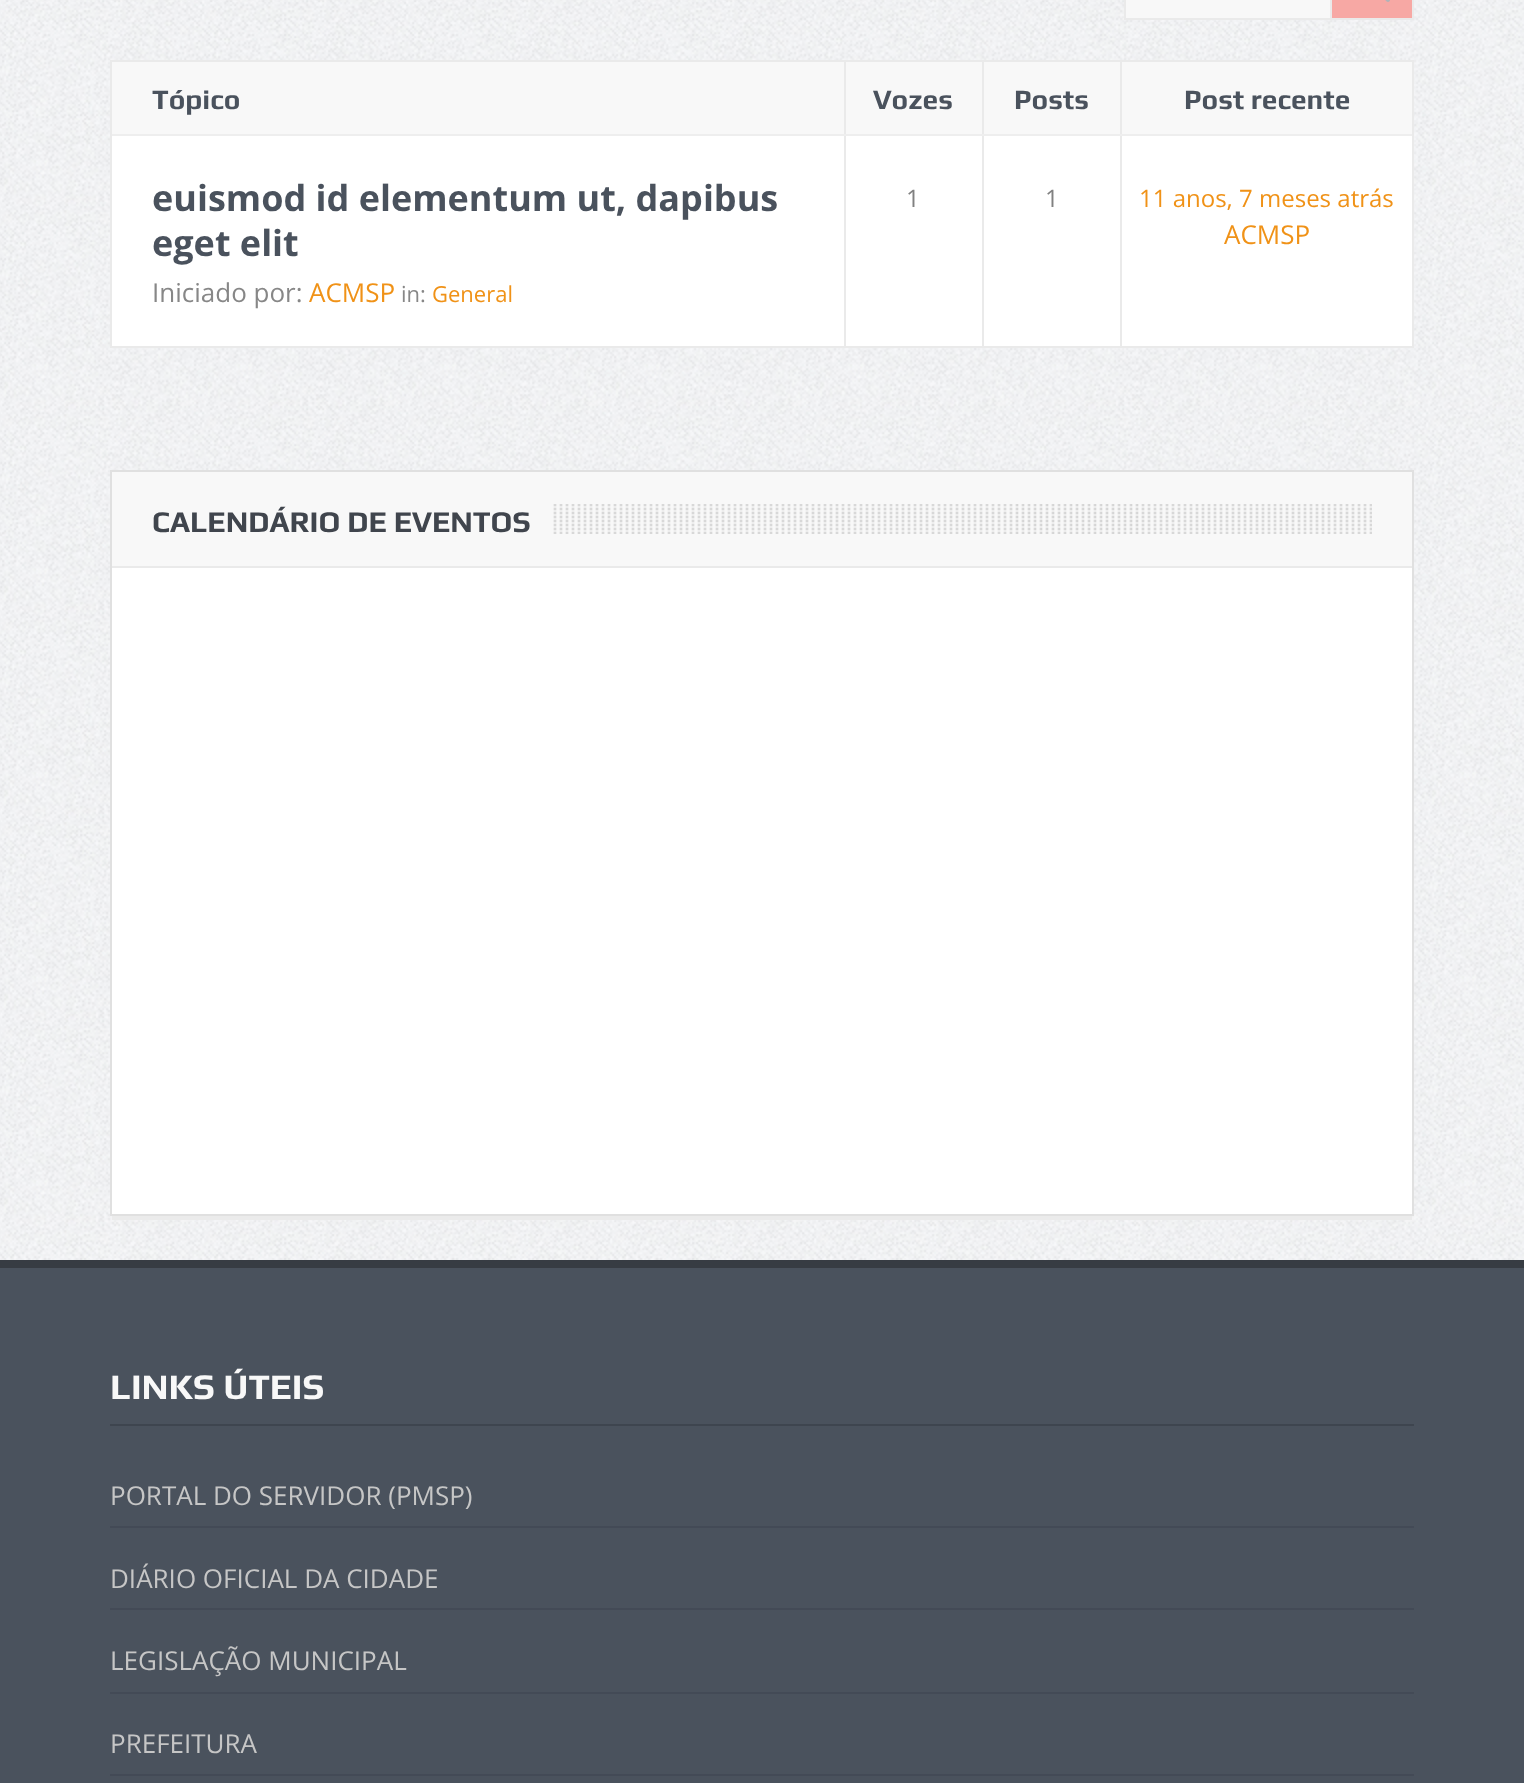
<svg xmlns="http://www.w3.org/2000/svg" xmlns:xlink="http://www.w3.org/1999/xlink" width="1524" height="1783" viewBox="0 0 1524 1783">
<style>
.cls-1{font:bold 28px Play;fill:#4a525d}
.cls-2{font:bold 36px Open Sans;fill:#4a525d}
.cls-3{font:26px Open Sans;fill:#878787}
.cls-4{font:26px Open Sans;fill:#f09217}
.cls-5{font:22px Open Sans;fill:#878787}
.cls-6{font:22px Open Sans;fill:#f09217}
.cls-7{font:24px Open Sans;fill:#818181}
.cls-8{font:24px Open Sans;fill:#f09217}
.cls-9{font:bold 30px Play;fill:#40454d}
.cls-10{font:bold 36px Play;fill:#f8f8f8}
.cls-11{font:26px Open Sans;fill:#c6c6c6}
</style>
<rect width="100%" height="100%" fill="#ffffff"/>
<image xlink:href="image0.png" x="0" y="0" width="1524" height="1260"/>
<rect fill="#f8f8f8" stroke="#eaeaea" stroke-width="2" x="1125" y="-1" width="206" height="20"/>
<rect fill="#f7a8a4" stroke="#eaeaea" stroke-width="2" x="1331" y="-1" width="82" height="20"/>
<image xlink:href="image1.png" x="1385" y="0" width="5" height="2"/>
<rect fill="none" stroke="#eaeaea" stroke-width="2" x="111" y="61" width="1302" height="286"/>
<rect fill="#f8f8f8" x="112" y="62" width="1300" height="72"/>
<rect fill="#eaeaea" x="844" y="62" width="2" height="72"/>
<rect fill="#eaeaea" x="982" y="62" width="2" height="72"/>
<rect fill="#eaeaea" x="1120" y="62" width="2" height="72"/>
<rect fill="#ffffff" x="112" y="136" width="1300" height="210"/>
<rect fill="#eeeeee" x="112" y="134" width="1300" height="2"/>
<rect fill="#eaeaea" x="844" y="136" width="2" height="210"/>
<rect fill="#eaeaea" x="982" y="136" width="2" height="210"/>
<rect fill="#eaeaea" x="1120" y="136" width="2" height="210"/>
<rect fill="#ffffff" x="112" y="568" width="1300" height="646"/>
<rect fill="none" stroke="#e0e0e0" stroke-width="2" x="111" y="471" width="1302" height="744"/>
<rect fill="#f8f8f8" x="112" y="472" width="1300" height="94"/>
<rect fill="#eaeaea" x="112" y="566" width="1300" height="2"/>
<image xlink:href="image2.png" x="553" y="504" width="819" height="30"/>
<rect fill="#ebebeb" x="112" y="1216" width="1300" height="4"/>
<rect fill="#4a525d" x="0" y="1268" width="1524" height="515"/>
<rect fill="#373c43" x="0" y="1260" width="1524" height="8"/>
<rect fill="#3e454f" x="110" y="1424" width="1304" height="2"/>
<rect fill="#434a56" x="110" y="1526" width="1304" height="2"/>
<rect fill="#434a56" x="110" y="1608" width="1304" height="2"/>
<rect fill="#434a56" x="110" y="1692" width="1304" height="2"/>
<rect fill="#434a56" x="110" y="1774" width="1304" height="2"/>
<text class="cls-1" x="152" y="109">Tópico</text>
<text class="cls-1" x="873" y="109">Vozes</text>
<text class="cls-1" x="1014" y="109">Posts</text>
<text class="cls-1" x="1184" y="109">Post recente</text>
<text class="cls-2"><tspan x="152" y="211">euismod id elementum ut, dapibus</tspan><tspan x="152" y="256">eget elit</tspan></text>
<text class="cls-3" x="152" y="302">Iniciado por:</text>
<text class="cls-4" x="309" y="302">ACMSP</text>
<text class="cls-5" x="401" y="302">in:</text>
<text class="cls-6" x="432" y="302">General</text>
<text class="cls-7" x="906" y="207">1</text>
<text class="cls-7" x="1045" y="207">1</text>
<text class="cls-8" x="1139" y="207">11 anos, 7 meses atrás</text>
<text class="cls-4" x="1224" y="244">ACMSP</text>
<text class="cls-9" x="152" y="532">CALENDÁRIO DE EVENTOS</text>
<text class="cls-10" x="110" y="1399">LINKS ÚTEIS</text>
<text class="cls-11" x="110" y="1505">PORTAL DO SERVIDOR (PMSP)</text>
<text class="cls-11" x="110" y="1588">DIÁRIO OFICIAL DA CIDADE</text>
<text class="cls-11" x="110" y="1670">LEGISLAÇÃO MUNICIPAL</text>
<text class="cls-11" x="110" y="1753">PREFEITURA</text>
</svg>
